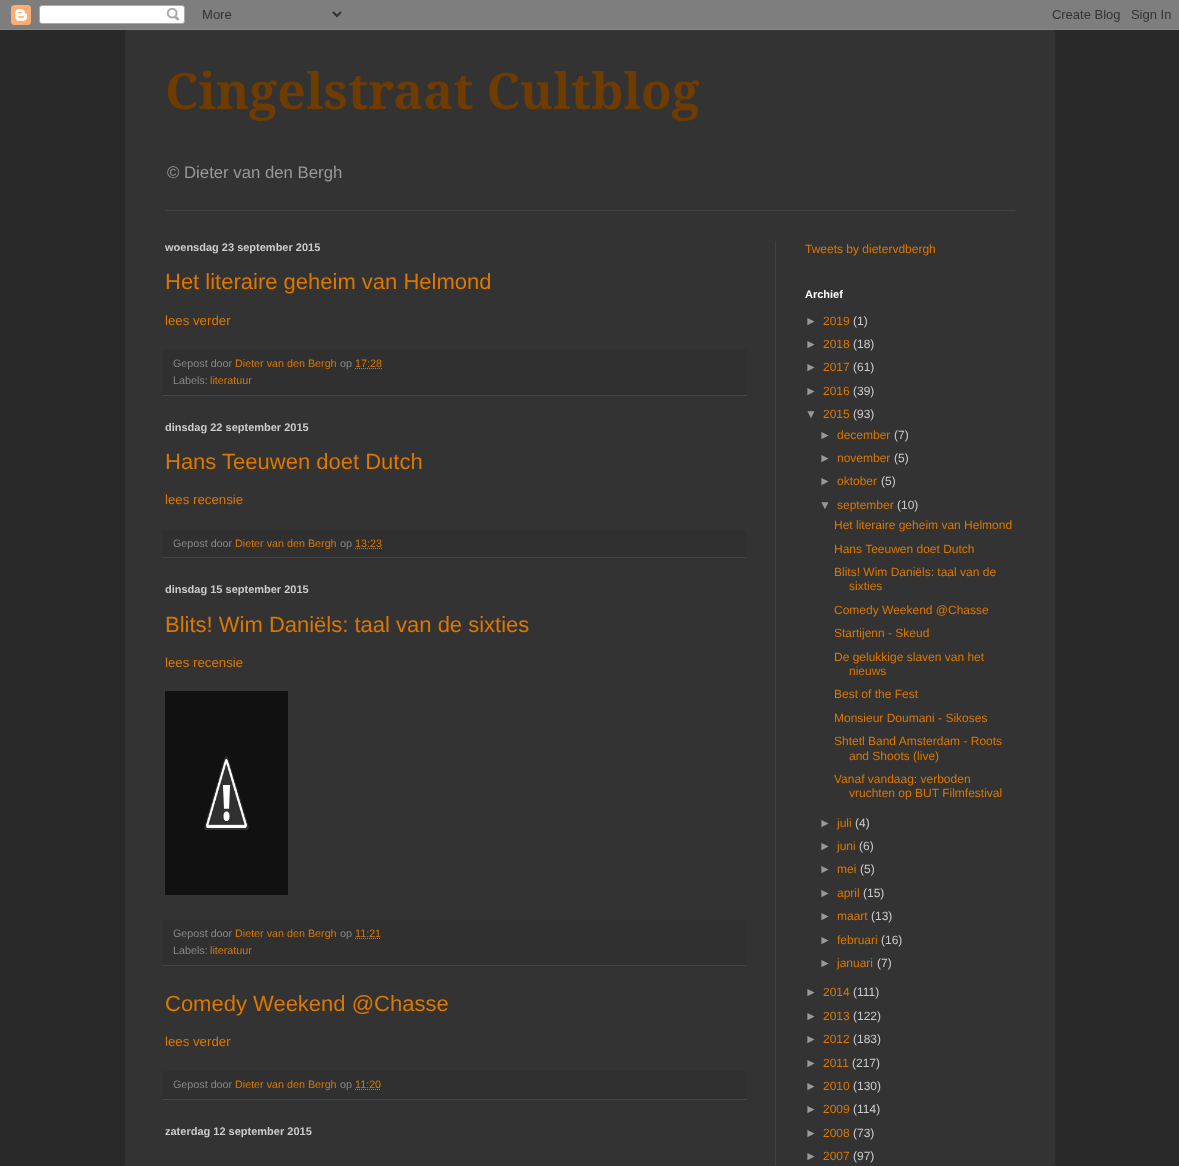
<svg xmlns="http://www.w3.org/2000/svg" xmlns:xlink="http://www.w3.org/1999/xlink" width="1179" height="1166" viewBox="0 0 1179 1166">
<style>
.cls-1{font:bold 50px Droid Serif;fill:#6e3b00}
.cls-2{font:16.75px Liberation Sans;fill:#999999}
.cls-3{font:bold 11px Liberation Sans;fill:#cccccc}
.cls-4{font:22px Liberation Sans;fill:#dd7700}
.cls-5{font:13.25px Liberation Sans;fill:#dd7700}
.cls-6{font:10.75px Liberation Sans;fill:#888888}
.cls-7{font:10.75px Liberation Sans;fill:#dd7700}
.cls-8{font:12px Liberation Sans;fill:#dd7700}
.cls-9{font:bold 11px Liberation Sans;fill:#ffffff}
.cls-10{font:12px Liberation Sans;fill:#999999}
.cls-11{font:12px Liberation Sans;fill:#cccccc}
</style>
<rect width="100%" height="100%" fill="#292929"/>
<image xlink:href="image0.png" x="0" y="0" width="1179" height="30"/>
<rect fill="#333333" x="125" y="30" width="930" height="1136"/>
<rect fill="#404040" x="165" y="210" width="850" height="1"/>
<rect fill="#404040" x="775" y="241" width="1" height="925"/>
<rect fill="#303030" x="163" y="350" width="584" height="45"/>
<rect fill="#444444" x="163" y="395" width="584" height="1"/>
<path fill="none" stroke="#dd7700" stroke-dasharray="1 1" d="M355 368.5H382"/>
<rect fill="#303030" x="163" y="530" width="584" height="27"/>
<rect fill="#444444" x="163" y="557" width="584" height="1"/>
<path fill="none" stroke="#dd7700" stroke-dasharray="1 1" d="M355 548.5H382"/>
<rect fill="#111111" x="165" y="691" width="123" height="204"/>
<image xlink:href="image1.png" x="204" y="756" width="45" height="74"/>
<rect fill="#303030" x="163" y="920" width="584" height="45"/>
<rect fill="#444444" x="163" y="965" width="584" height="1"/>
<path fill="none" stroke="#dd7700" stroke-dasharray="1 1" d="M355 938.5H381"/>
<rect fill="#303030" x="163" y="1071" width="584" height="28"/>
<rect fill="#444444" x="163" y="1099" width="584" height="1"/>
<path fill="none" stroke="#dd7700" stroke-dasharray="1 1" d="M355 1089.5H381"/>
<text class="cls-1" x="165" y="109">Cingelstraat Cultblog</text>
<text class="cls-2" x="167" y="178">© Dieter van den Bergh</text>
<text class="cls-3" x="165" y="251">woensdag 23 september 2015</text>
<text class="cls-4" x="165" y="289">Het literaire geheim van Helmond</text>
<text class="cls-5" x="165" y="325">lees verder</text>
<text class="cls-6" x="173" y="367">Gepost door</text>
<text class="cls-7" x="235" y="367">Dieter van den Bergh</text>
<text class="cls-6" x="340" y="367">op</text>
<text class="cls-7" x="355" y="367">17:28</text>
<text class="cls-6" x="173" y="384">Labels:</text>
<text class="cls-7" x="210" y="384">literatuur</text>
<text class="cls-3" x="165" y="431">dinsdag 22 september 2015</text>
<text class="cls-4" x="165" y="469">Hans Teeuwen doet Dutch</text>
<text class="cls-5" x="165" y="504">lees recensie</text>
<text class="cls-6" x="173" y="547">Gepost door</text>
<text class="cls-7" x="235" y="547">Dieter van den Bergh</text>
<text class="cls-6" x="340" y="547">op</text>
<text class="cls-7" x="355" y="547">13:23</text>
<text class="cls-3" x="165" y="593">dinsdag 15 september 2015</text>
<text class="cls-4" x="165" y="632">Blits! Wim Daniëls: taal van de sixties</text>
<text class="cls-5" x="165" y="667">lees recensie</text>
<text class="cls-6" x="173" y="937">Gepost door</text>
<text class="cls-7" x="235" y="937">Dieter van den Bergh</text>
<text class="cls-6" x="340" y="937">op</text>
<text class="cls-7" x="355" y="937">11:21</text>
<text class="cls-6" x="173" y="954">Labels:</text>
<text class="cls-7" x="210" y="954">literatuur</text>
<text class="cls-4" x="165" y="1011">Comedy Weekend @Chasse</text>
<text class="cls-5" x="165" y="1046">lees verder</text>
<text class="cls-6" x="173" y="1088">Gepost door</text>
<text class="cls-7" x="235" y="1088">Dieter van den Bergh</text>
<text class="cls-6" x="340" y="1088">op</text>
<text class="cls-7" x="355" y="1088">11:20</text>
<text class="cls-3" x="165" y="1135">zaterdag 12 september 2015</text>
<text class="cls-8" x="805" y="253">Tweets by dietervdbergh</text>
<text class="cls-9" x="805" y="298">Archief</text>
<text class="cls-10" x="805" y="325">►</text>
<text class="cls-8" x="823" y="325">2019</text>
<text class="cls-11" x="853" y="325">(1)</text>
<text class="cls-10" x="805" y="348">►</text>
<text class="cls-8" x="823" y="348">2018</text>
<text class="cls-11" x="853" y="348">(18)</text>
<text class="cls-10" x="805" y="371">►</text>
<text class="cls-8" x="823" y="371">2017</text>
<text class="cls-11" x="853" y="371">(61)</text>
<text class="cls-10" x="805" y="395">►</text>
<text class="cls-8" x="823" y="395">2016</text>
<text class="cls-11" x="853" y="395">(39)</text>
<text class="cls-10" x="805" y="418">▼</text>
<text class="cls-8" x="823" y="418">2015</text>
<text class="cls-11" x="853" y="418">(93)</text>
<text class="cls-10" x="819" y="439">►</text>
<text class="cls-8" x="837" y="439">december</text>
<text class="cls-11" x="894" y="439">(7)</text>
<text class="cls-10" x="819" y="462">►</text>
<text class="cls-8" x="837" y="462">november</text>
<text class="cls-11" x="894" y="462">(5)</text>
<text class="cls-10" x="819" y="485">►</text>
<text class="cls-8" x="837" y="485">oktober</text>
<text class="cls-11" x="881" y="485">(5)</text>
<text class="cls-10" x="819" y="509">▼</text>
<text class="cls-8" x="837" y="509">september</text>
<text class="cls-11" x="897" y="509">(10)</text>
<text class="cls-8" x="834" y="529">Het literaire geheim van Helmond</text>
<text class="cls-8"><tspan x="834" y="553">Hans Teeuwen doet Dutch</tspan><tspan x="834" y="576">Blits! Wim Daniëls: taal van de</tspan></text>
<text class="cls-8" x="849" y="590">sixties</text>
<text class="cls-8"><tspan x="834" y="614">Comedy Weekend @Chasse</tspan><tspan x="834" y="637">Startijenn - Skeud</tspan></text>
<text class="cls-8" x="834" y="661">De gelukkige slaven van het</text>
<text class="cls-8" x="849" y="675">nieuws</text>
<text class="cls-8" x="834" y="698">Best of the Fest</text>
<text class="cls-8"><tspan x="834" y="722">Monsieur Doumani - Sikoses</tspan><tspan x="834" y="745">Shtetl Band Amsterdam - Roots</tspan></text>
<text class="cls-8" x="849" y="760">and Shoots (live)</text>
<text class="cls-8" x="834" y="783">Vanaf vandaag: verboden</text>
<text class="cls-8" x="849" y="797">vruchten op BUT Filmfestival</text>
<text class="cls-10" x="819" y="827">►</text>
<text class="cls-8" x="837" y="827">juli</text>
<text class="cls-11" x="855" y="827">(4)</text>
<text class="cls-10" x="819" y="850">►</text>
<text class="cls-8" x="837" y="850">juni</text>
<text class="cls-11" x="859" y="850">(6)</text>
<text class="cls-10" x="819" y="873">►</text>
<text class="cls-8" x="837" y="873">mei</text>
<text class="cls-11" x="860" y="873">(5)</text>
<text class="cls-10" x="819" y="897">►</text>
<text class="cls-8" x="837" y="897">april</text>
<text class="cls-11" x="863" y="897">(15)</text>
<text class="cls-10" x="819" y="920">►</text>
<text class="cls-8" x="837" y="920">maart</text>
<text class="cls-11" x="871" y="920">(13)</text>
<text class="cls-10" x="819" y="944">►</text>
<text class="cls-8" x="837" y="944">februari</text>
<text class="cls-11" x="881" y="944">(16)</text>
<text class="cls-10" x="819" y="967">►</text>
<text class="cls-8" x="837" y="967">januari</text>
<text class="cls-11" x="877" y="967">(7)</text>
<text class="cls-10" x="805" y="996">►</text>
<text class="cls-8" x="823" y="996">2014</text>
<text class="cls-11" x="853" y="996">(111)</text>
<text class="cls-10" x="805" y="1020">►</text>
<text class="cls-8" x="823" y="1020">2013</text>
<text class="cls-11" x="853" y="1020">(122)</text>
<text class="cls-10" x="805" y="1043">►</text>
<text class="cls-8" x="823" y="1043">2012</text>
<text class="cls-11" x="853" y="1043">(183)</text>
<text class="cls-10" x="805" y="1067">►</text>
<text class="cls-8" x="823" y="1067">2011</text>
<text class="cls-11" x="852" y="1067">(217)</text>
<text class="cls-10" x="805" y="1090">►</text>
<text class="cls-8" x="823" y="1090">2010</text>
<text class="cls-11" x="853" y="1090">(130)</text>
<text class="cls-10" x="805" y="1113">►</text>
<text class="cls-8" x="823" y="1113">2009</text>
<text class="cls-11" x="853" y="1113">(114)</text>
<text class="cls-10" x="805" y="1137">►</text>
<text class="cls-8" x="823" y="1137">2008</text>
<text class="cls-11" x="853" y="1137">(73)</text>
<text class="cls-10" x="805" y="1160">►</text>
<text class="cls-8" x="823" y="1160">2007</text>
<text class="cls-11" x="853" y="1160">(97)</text>
</svg>
